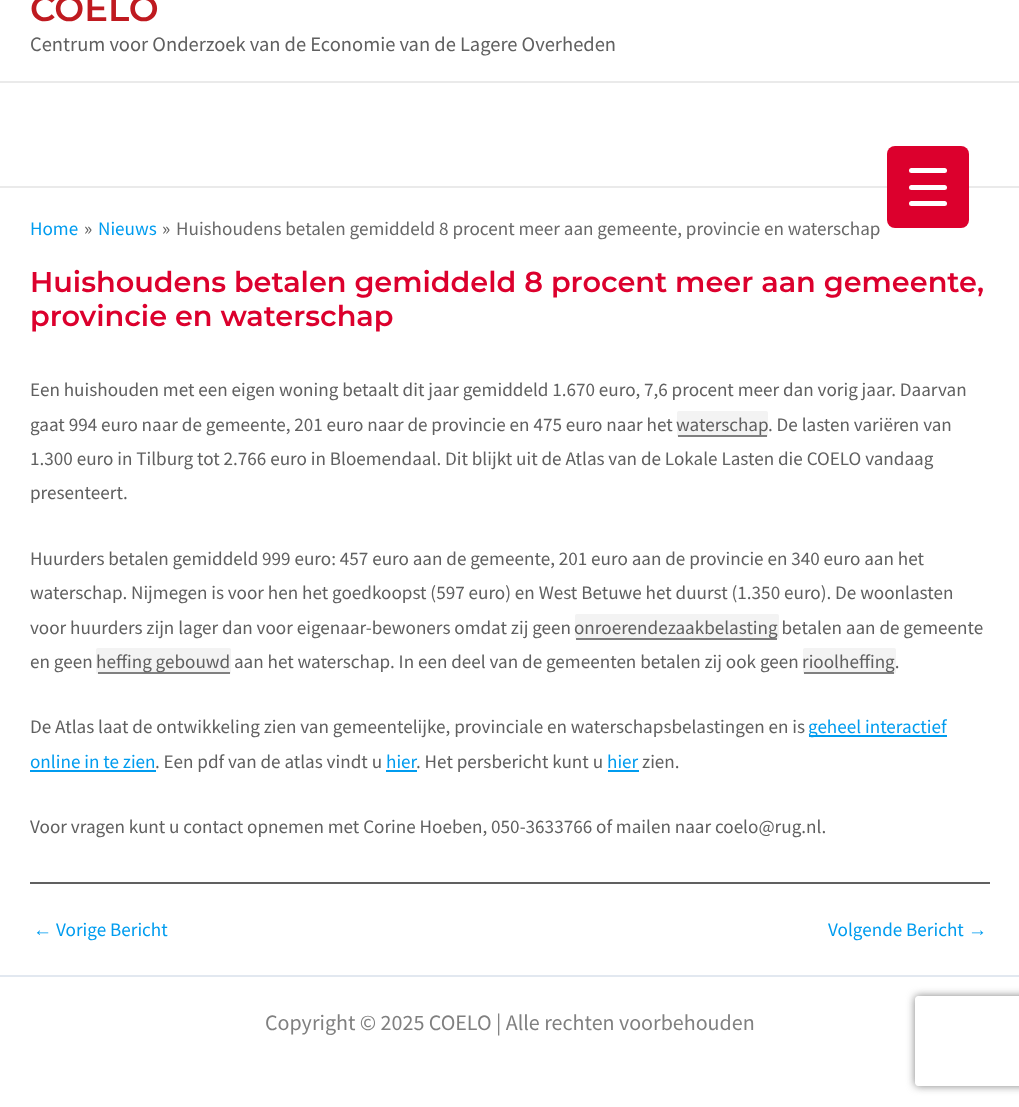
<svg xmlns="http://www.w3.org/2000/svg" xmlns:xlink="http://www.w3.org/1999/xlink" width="1019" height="1107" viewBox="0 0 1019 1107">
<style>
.cls-1{font:600 35.5px Montserrat;fill:#bf1a20}
.cls-2{font:20.5px Source Sans Pro;fill:#606060}
.cls-3{font:19.15px Source Sans Pro;fill:#009cef}
.cls-4{font:19.15px Source Sans Pro;fill:#606060}
.cls-5{font:19.15px Source Sans Pro;fill:#696969}
.cls-6{font:600 28.75px Montserrat;fill:#dc002d}
.cls-7{font:19.15px Liberation Sans;fill:#009cef}
.cls-8{font:22px Source Sans Pro;fill:#808080}
</style>
<defs>
<clipPath id="clip1"><path d="M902 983H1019V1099H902ZM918 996H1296C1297.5 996 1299 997.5 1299 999V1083C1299 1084.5 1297.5 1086 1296 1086H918C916.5 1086 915 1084.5 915 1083V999C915 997.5 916.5 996 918 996Z" clip-rule="evenodd"/></clipPath>
</defs>
<rect width="100%" height="100%" fill="#ffffff"/>
<rect fill="#eaeaea" x="0" y="81" width="1019" height="2"/>
<rect fill="#eaeaea" x="0" y="186" width="1019" height="2"/>
<rect fill="#f3f3f3" x="677" y="411" width="91" height="26" rx="2"/>
<rect fill="#808080" x="678" y="435" width="89" height="2"/>
<rect fill="#f3f3f3" x="575" y="614" width="204" height="25" rx="2"/>
<rect fill="#808080" x="576" y="638" width="201" height="2"/>
<rect fill="#f3f3f3" x="96" y="648" width="135" height="26" rx="2"/>
<rect fill="#808080" x="98" y="672" width="132" height="2"/>
<rect fill="#f3f3f3" x="803" y="648" width="93" height="26" rx="2"/>
<rect fill="#808080" x="804" y="672" width="90" height="2"/>
<rect fill="#009cef" x="809" y="735" width="138" height="2"/>
<rect fill="#009cef" x="30" y="770" width="126" height="2"/>
<rect fill="#009cef" x="386" y="770" width="31" height="2"/>
<rect fill="#009cef" x="608" y="770" width="31" height="2"/>
<rect fill="#606060" x="30" y="882" width="960" height="2"/>
<rect fill="#e2e8f0" x="0" y="975" width="1019" height="2"/>
<rect fill="#dc002d" x="887" y="146" width="82" height="82" rx="8"/>
<rect fill="#ffffff" x="909" y="185" width="38" height="5" rx="2.5"/>
<rect fill="#ffffff" x="909" y="168" width="38" height="5" rx="2.5"/>
<rect fill="#ffffff" x="909" y="201" width="38" height="5" rx="2.5"/>
<g clip-path="url(#clip1)">
<rect fill="#808080" filter="blur(4px)" x="915" y="996" width="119" height="90" rx="3"/>
</g>
<text class="cls-1" x="30" y="21">COELO</text>
<text class="cls-2" x="30" y="51">Centrum voor Onderzoek van de Economie van de Lagere Overheden</text>
<text class="cls-3" x="30" y="235">Home</text>
<text class="cls-4" x="84" y="235">»</text>
<text class="cls-3" x="98" y="235">Nieuws</text>
<text class="cls-4" x="162" y="235">»</text>
<text class="cls-5" x="176" y="235">Huishoudens betalen gemiddeld 8 procent meer aan gemeente, provincie en waterschap</text>
<text class="cls-6"><tspan x="30" y="292">Huishoudens betalen gemiddeld 8 procent meer aan gemeente,</tspan><tspan x="30" y="326">provincie en waterschap</tspan></text>
<text class="cls-4"><tspan x="30" y="396">Een huishouden met een eigen woning betaalt dit jaar gemiddeld 1.670 euro, 7,6 procent meer dan vorig jaar. Daarvan</tspan><tspan x="30" y="431">gaat 994 euro naar de gemeente, 201 euro naar de provincie en 475 euro naar het</tspan></text>
<text class="cls-4" x="676" y="431">waterschap</text>
<text class="cls-4" x="768" y="431">. De lasten variëren van</text>
<text class="cls-4"><tspan x="30" y="465">1.300 euro in Tilburg tot 2.766 euro in Bloemendaal. Dit blijkt uit de Atlas van de Lokale Lasten die COELO vandaag</tspan><tspan x="30" y="499">presenteert.</tspan></text>
<text class="cls-4"><tspan x="30" y="565">Huurders betalen gemiddeld 999 euro: 457 euro aan de gemeente, 201 euro aan de provincie en 340 euro aan het</tspan><tspan x="30" y="599">waterschap. Nijmegen is voor hen het goedkoopst (597 euro) en West Betuwe het duurst (1.350 euro). De woonlasten</tspan><tspan x="30" y="634">voor huurders zijn lager dan voor eigenaar-bewoners omdat zij geen</tspan></text>
<text class="cls-4" x="574" y="634">onroerendezaakbelasting betalen aan de gemeente</text>
<text class="cls-4" x="30" y="668">en geen</text>
<text class="cls-4" x="96" y="668">heffing gebouwd aan het waterschap. In een deel van de gemeenten betalen zij ook geen</text>
<text class="cls-4" x="802" y="668">rioolheffing.</text>
<text class="cls-4" x="30" y="733">De Atlas laat de ontwikkeling zien van gemeentelijke, provinciale en waterschapsbelastingen en is</text>
<text class="cls-3" x="808" y="733">geheel interactief</text>
<text class="cls-3" x="30" y="768">online in te zien</text>
<text class="cls-4" x="155" y="768">. Een pdf van de atlas vindt u</text>
<text class="cls-3" x="386" y="768">hier</text>
<text class="cls-4" x="416" y="768">. Het persbericht kunt u</text>
<text class="cls-3" x="607" y="768">hier</text>
<text class="cls-4" x="642" y="768">zien.</text>
<text class="cls-4" x="30" y="833">Voor vragen kunt u contact opnemen met Corine Hoeben, 050-3633766 of mailen naar coelo@rug.nl.</text>
<text class="cls-7" x="33" y="936">←</text>
<text class="cls-3" x="56" y="936">Vorige Bericht</text>
<text class="cls-3" x="828" y="936">Volgende Bericht</text>
<text class="cls-7" x="968" y="936">→</text>
<text class="cls-8" x="265" y="1030">Copyright © 2025 COELO | Alle rechten voorbehouden</text>
</svg>
